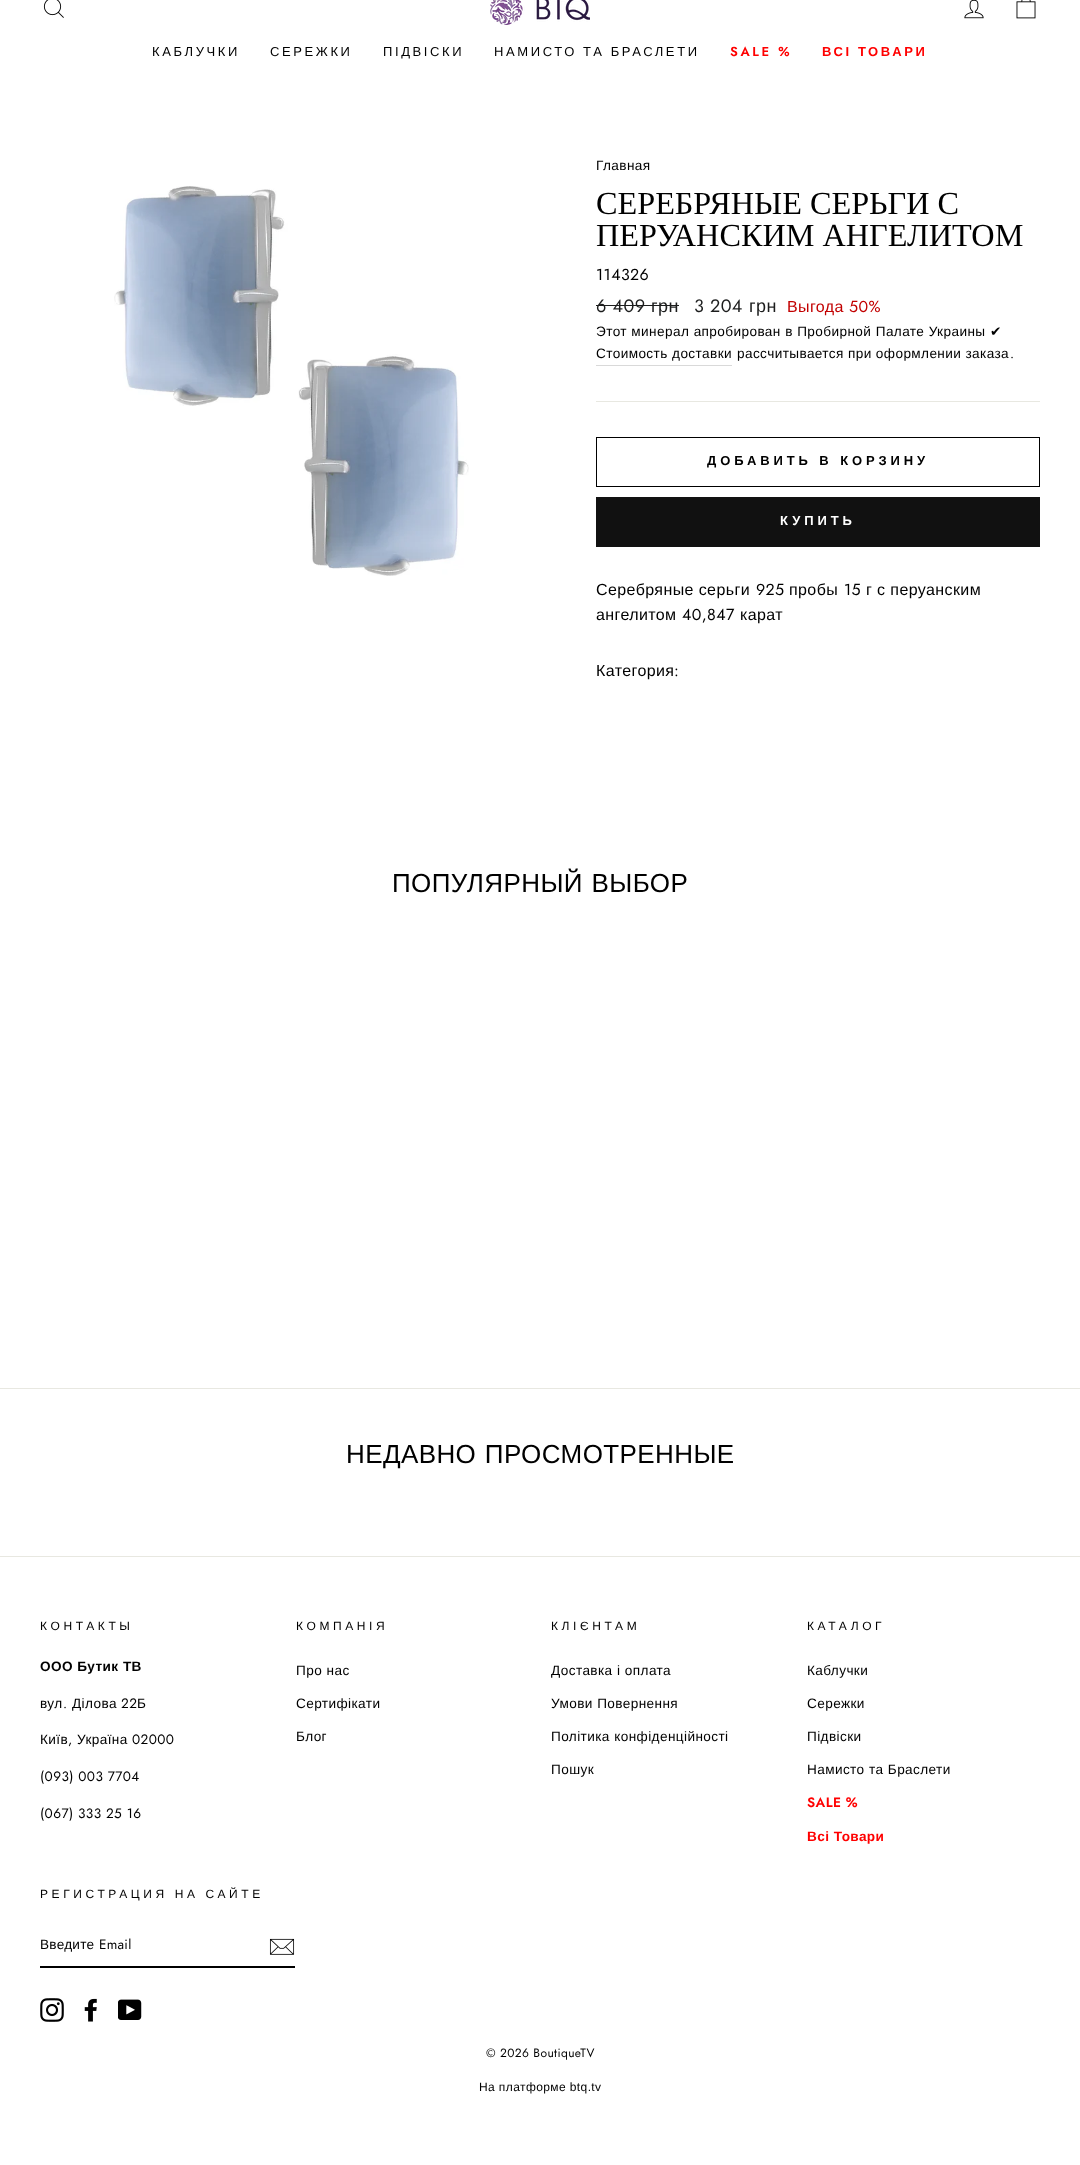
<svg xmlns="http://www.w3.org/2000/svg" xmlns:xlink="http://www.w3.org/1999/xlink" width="1080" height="2165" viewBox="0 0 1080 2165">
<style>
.cls-1{font:13px Liberation Sans;letter-spacing:2.6px;fill:#000000}
.cls-2{font:600 13px Jost;letter-spacing:2.6px;fill:#ff0000}
.cls-3{font:bold 13px Liberation Sans;letter-spacing:2.6px;fill:#ff0000}
.cls-4{font:13.6px Liberation Sans;letter-spacing:0.4px;fill:#000000}
.cls-5{font:32.25px Liberation Serif;fill:#000000}
.cls-6{font:16px Jost;letter-spacing:0.4px;fill:#000000}
.cls-7{font:18px Jost;letter-spacing:0.4px;fill:#1c1d1d}
.cls-8{font:18px Liberation Sans;letter-spacing:0.4px;fill:#1c1d1d}
.cls-9{font:16px Liberation Sans;letter-spacing:0.4px;fill:#c20000}
.cls-10{font:16px Jost;letter-spacing:0.4px;fill:#c20000}
.cls-11{font:13.6px DejaVu Sans;letter-spacing:0.4px;fill:#000000}
.cls-12{font:13.6px Jost;letter-spacing:0.4px;fill:#000000}
.cls-13{font:bold 13px Liberation Sans;letter-spacing:3.9px;fill:#000000}
.cls-14{font:bold 13px Liberation Sans;letter-spacing:3.9px;fill:#ffffff}
.cls-15{font:16px Liberation Sans;letter-spacing:0.4px;fill:#000000}
.cls-16{font:26px Liberation Sans;letter-spacing:0.4px;fill:#000000}
.cls-17{font:12px Liberation Sans;letter-spacing:3.6px;fill:#000000}
.cls-18{font:bold 13.6px Liberation Sans;letter-spacing:0.4px;fill:#000000}
.cls-19{font:600 13.6px Jost;letter-spacing:0.4px;fill:#ff0000}
.cls-20{font:bold 13.6px Liberation Sans;letter-spacing:0.4px;fill:#ff0000}
.cls-21{font:13.6px Liberation Sans;letter-spacing:0.25px;fill:#000000}
.cls-22{font:13.6px Jost;letter-spacing:0.25px;fill:#000000}
.cls-23{font:12px Jost;letter-spacing:0.4px;fill:#000000}
.cls-24{font:12px Liberation Sans;letter-spacing:0.4px;fill:#000000}
</style>
<rect width="100%" height="100%" fill="#ffffff"/>
<image xlink:href="image0.png" x="43" y="0" width="21" height="18"/>
<image xlink:href="image1.png" x="490" y="0" width="100" height="25"/>
<image xlink:href="image2.png" x="964" y="0" width="20" height="19"/>
<image xlink:href="image3.png" x="1016" y="0" width="20" height="19"/>
<image xlink:href="image4.png" x="114" y="186" width="355" height="390"/>
<rect fill="#1c1d1d" x="596" y="305" width="83" height="1"/>
<rect fill="#d9d9d9" x="596" y="365" width="136" height="1"/>
<rect fill="#e8e8e1" x="596" y="401" width="444" height="1"/>
<rect fill="none" stroke="#000000" x="596.5" y="437.5" width="443" height="49"/>
<rect fill="#111111" x="596" y="497" width="444" height="50"/>
<rect fill="#e8e8e1" x="0" y="1388" width="1080" height="1"/>
<rect fill="#e8e8e1" x="0" y="1556" width="1080" height="1"/>
<rect fill="#000000" x="40" y="1966" width="255" height="2"/>
<image xlink:href="image5.png" x="269" y="1938" width="26" height="17"/>
<image xlink:href="image6.png" x="40" y="1998" width="24" height="24"/>
<image xlink:href="image7.png" x="84" y="1998" width="13" height="24"/>
<image xlink:href="image8.png" x="118" y="1999" width="24" height="21"/>
<text class="cls-1" x="152" y="56">КАБЛУЧКИ</text>
<text class="cls-1" x="270" y="56">СЕРЕЖКИ</text>
<text class="cls-1" x="383" y="56">ПІДВІСКИ</text>
<text class="cls-1" x="494" y="56">НАМИСТО ТА БРАСЛЕТИ</text>
<text class="cls-2" x="730" y="56">SALE %</text>
<text class="cls-3" x="822" y="56">ВСІ ТОВАРИ</text>
<text class="cls-4" x="596" y="170">Главная</text>
<text class="cls-5"><tspan x="596" y="214">СЕРЕБРЯНЫЕ СЕРЬГИ С</tspan><tspan x="596" y="246">ПЕРУАНСКИМ АНГЕЛИТОМ</tspan></text>
<text class="cls-6" x="596" y="280">114326</text>
<text class="cls-7" x="596" y="312">6 409</text>
<text class="cls-8" x="651" y="312">грн</text>
<text class="cls-7" x="694" y="312">3 204</text>
<text class="cls-8" x="749" y="312">грн</text>
<text class="cls-9" x="787" y="312">Выгода</text>
<text class="cls-10" x="849" y="312">50%</text>
<text class="cls-4" x="596" y="336" word-spacing="0.25">Этот минерал апробирован в Пробирной Палате Украины</text>
<text class="cls-11" x="990" y="336">✔</text>
<text class="cls-4" x="596" y="358" word-spacing="0.25">Стоимость доставки</text>
<text class="cls-4" x="737" y="358">рассчитывается при оформлении заказа</text>
<text class="cls-12" x="1010" y="358">.</text>
<text class="cls-13" x="707" y="465">ДОБАВИТЬ В КОРЗИНУ</text>
<text class="cls-14" x="780" y="525">КУПИТЬ</text>
<text class="cls-15" x="596" y="595">Серебряные серьги</text>
<text class="cls-6" x="756" y="595">925</text>
<text class="cls-15" x="789" y="595">пробы</text>
<text class="cls-6" x="844" y="595">15</text>
<text class="cls-15" x="866" y="595">г с перуанским</text>
<text class="cls-15" x="596" y="620">ангелитом</text>
<text class="cls-6" x="682" y="620">40,847</text>
<text class="cls-15" x="740" y="620">карат</text>
<text class="cls-15" x="596" y="676">Категория</text>
<text class="cls-6" x="674" y="676">:</text>
<text class="cls-16" x="392" y="892" word-spacing="1">ПОПУЛЯРНЫЙ ВЫБОР</text>
<text class="cls-16" x="346" y="1463" word-spacing="1">НЕДАВНО ПРОСМОТРЕННЫЕ</text>
<text class="cls-17" x="40" y="1630">КОНТАКТЫ</text>
<text class="cls-18" x="40" y="1671" word-spacing="0.25">ООО Бутик ТВ</text>
<text class="cls-4" x="40" y="1708">вул</text>
<text class="cls-12" x="63" y="1708">.</text>
<text class="cls-4" x="72" y="1708">Ділова</text>
<text class="cls-12" x="121" y="1708">22</text>
<text class="cls-4" x="137" y="1708">Б</text>
<text class="cls-4" x="40" y="1744">Київ</text>
<text class="cls-12" x="68" y="1744">,</text>
<text class="cls-4" x="77" y="1744">Україна</text>
<text class="cls-12" x="132" y="1744">02000</text>
<text class="cls-12" x="40" y="1781">(093) 003 7704</text>
<text class="cls-12" x="40" y="1818">(067) 333 25 16</text>
<text class="cls-17" x="296" y="1630">КОМПАНІЯ</text>
<text class="cls-4" x="296" y="1675" word-spacing="0.25">Про нас</text>
<text class="cls-4" x="296" y="1708">Сертифікати</text>
<text class="cls-4" x="296" y="1741">Блог</text>
<text class="cls-17" x="551" y="1630">КЛІЄНТАМ</text>
<text class="cls-4" x="551" y="1675" word-spacing="0.25">Доставка і оплата</text>
<text class="cls-4" x="551" y="1708" word-spacing="0.25">Умови Повернення</text>
<text class="cls-4" x="551" y="1741" word-spacing="0.25">Політика конфіденційності</text>
<text class="cls-4" x="551" y="1774">Пошук</text>
<text class="cls-17" x="807" y="1630">КАТАЛОГ</text>
<text class="cls-4" x="807" y="1675">Каблучки</text>
<text class="cls-4" x="807" y="1708">Сережки</text>
<text class="cls-4" x="807" y="1741">Підвіски</text>
<text class="cls-4" x="807" y="1774" word-spacing="0.25">Намисто та Браслети</text>
<text class="cls-19" x="807" y="1807">SALE %</text>
<text class="cls-20" x="807" y="1841" word-spacing="0.25">Всі Товари</text>
<text class="cls-17" x="40" y="1898">РЕГИСТРАЦИЯ НА САЙТЕ</text>
<text class="cls-21" x="40" y="1949">Введите</text>
<text class="cls-22" x="99" y="1949">Email</text>
<text class="cls-23" x="486" y="2057">© 2026 BoutiqueTV</text>
<text class="cls-24" x="479" y="2091">На платформе btq.tv</text>
</svg>
